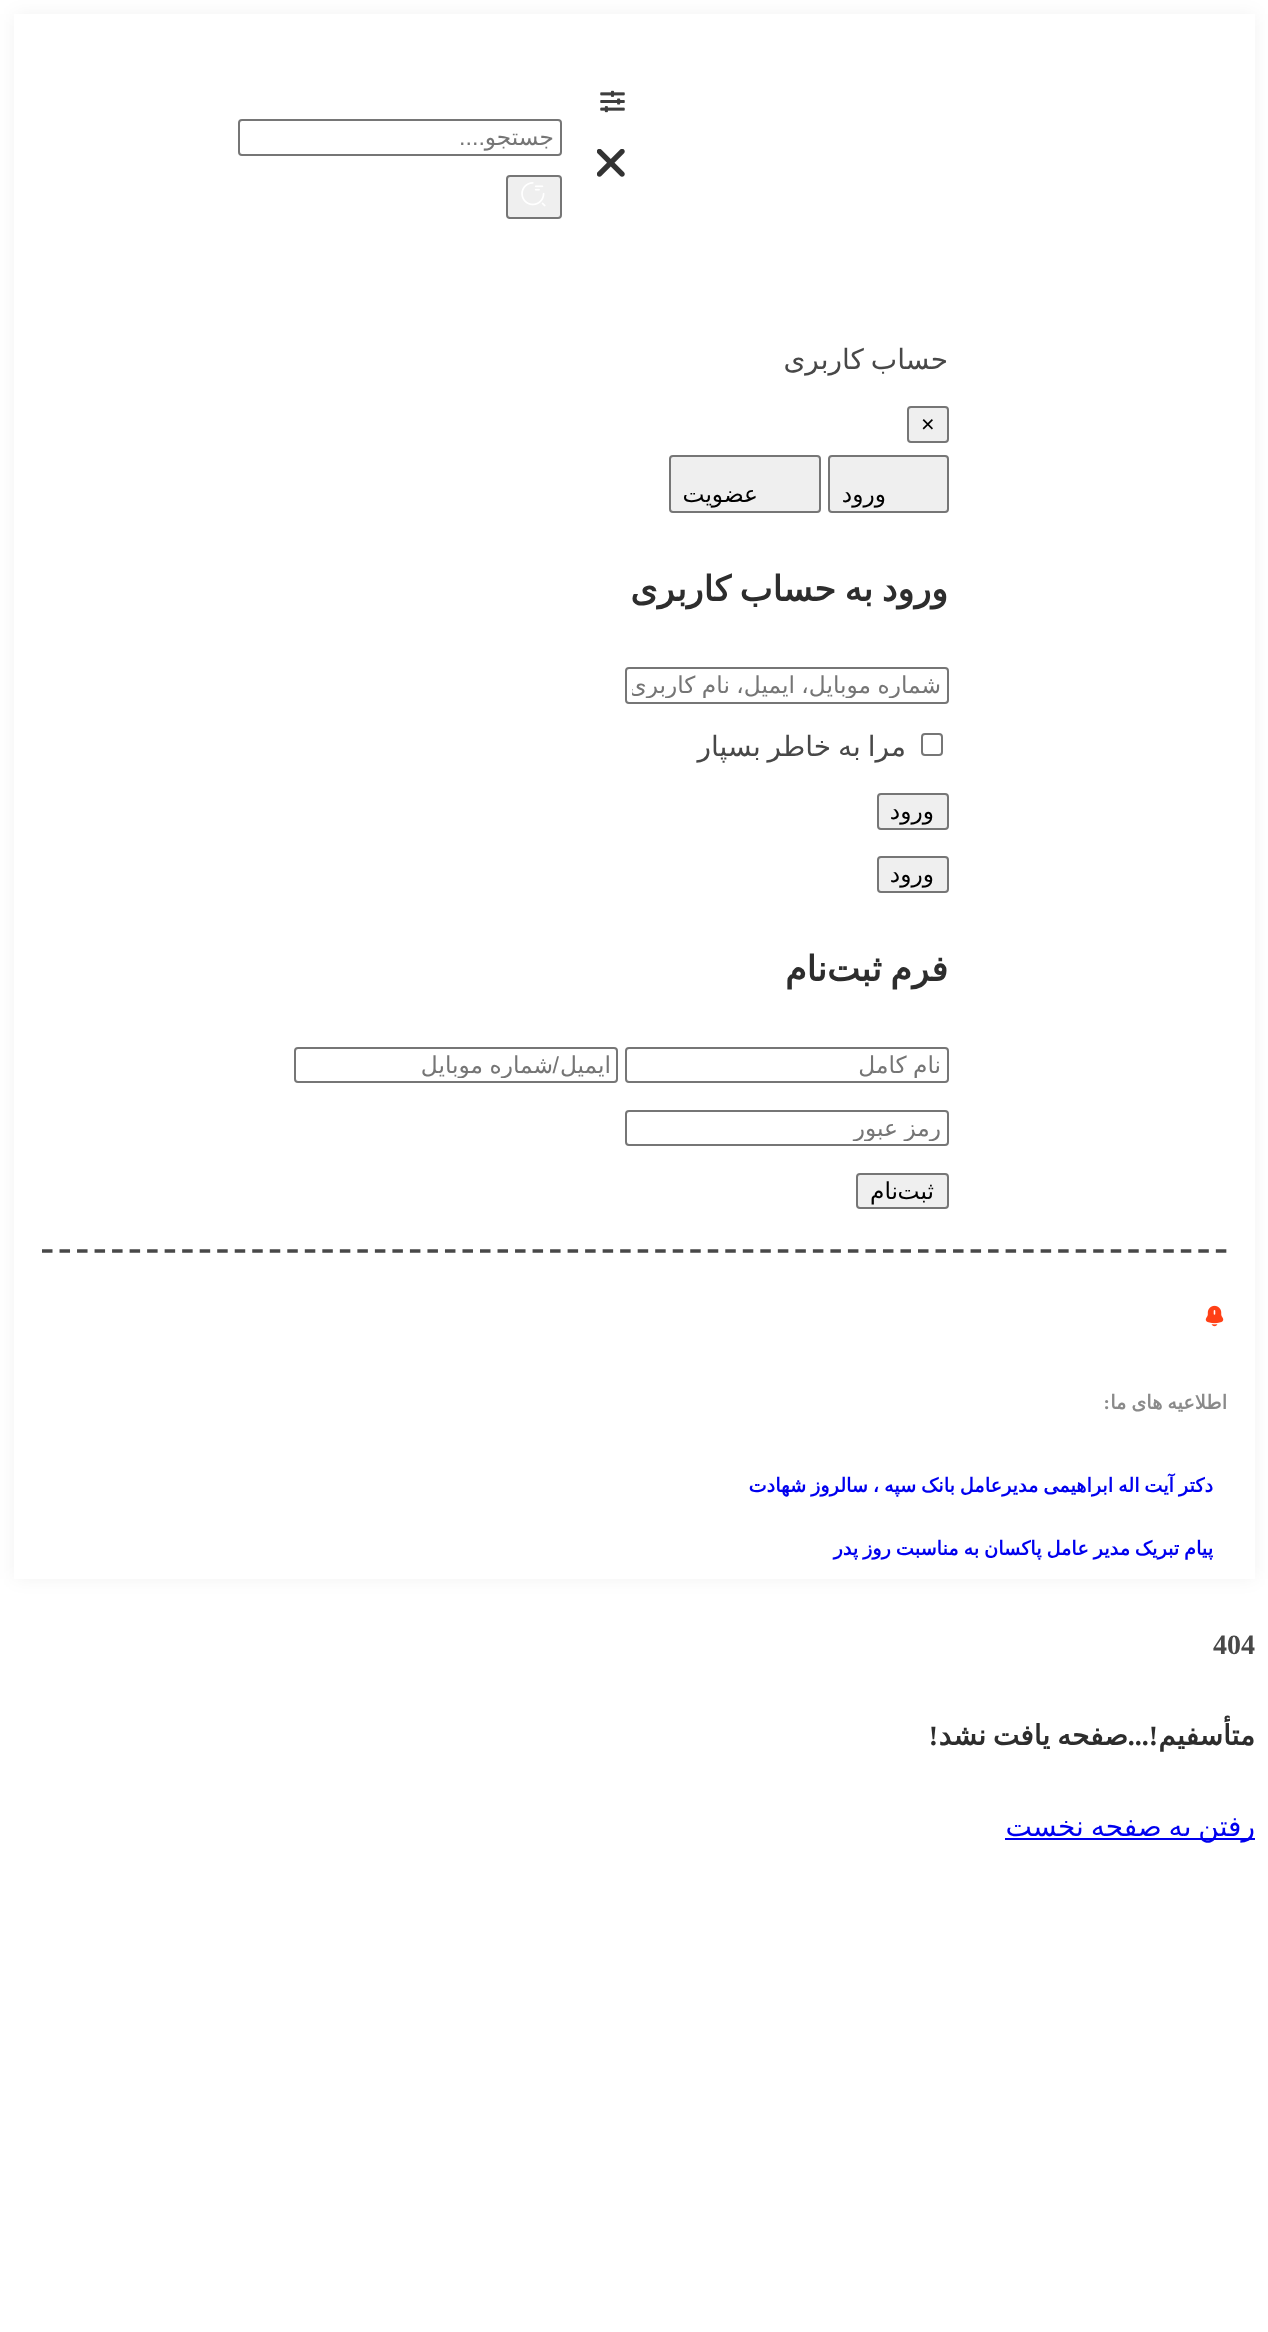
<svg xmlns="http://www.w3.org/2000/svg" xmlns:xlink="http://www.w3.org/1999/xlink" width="1268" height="2332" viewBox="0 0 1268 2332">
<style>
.cls-1{font:23.3px DejaVu Sans;direction:rtl;fill:#757575}
.cls-2{font:23.3px Liberation Sans;direction:rtl;fill:#757575}
.cls-3{font:28px DejaVu Sans;direction:rtl;fill:#484848}
.cls-4{font:23.3px Liberation Sans;fill:#000000}
.cls-5{font:23.3px DejaVu Sans;direction:rtl;fill:#000000}
.cls-6{font:bold 35px DejaVu Sans;direction:rtl;fill:#2d2d2d}
.cls-7{font:bold 19.25px DejaVu Sans;direction:rtl;fill:#8a8a8a}
.cls-8{font:bold 19.25px Liberation Serif;direction:rtl;fill:#8a8a8a}
.cls-9{font:bold 19.25px DejaVu Sans;direction:rtl;fill:#0000ee}
.cls-10{font:bold 28px Liberation Serif;fill:#484848}
.cls-11{font:bold 28px DejaVu Sans;direction:rtl;fill:#2d2d2d}
.cls-12{font:bold 28px Liberation Serif;direction:rtl;fill:#2d2d2d}
.cls-13{font:28px DejaVu Sans;direction:rtl;fill:#0000ee}
</style>
<defs>
<clipPath id="clip1"><rect x="632" y="672" width="310" height="26"/></clipPath>
<clipPath id="clip2"><rect x="632" y="1052" width="310" height="26"/></clipPath>
<clipPath id="clip3"><rect x="301" y="1052" width="310" height="26"/></clipPath>
<clipPath id="clip4"><rect x="632" y="1115" width="310" height="26"/></clipPath>
</defs>
<rect width="100%" height="100%" fill="#ffffff"/>
<rect fill="#000000" fill-opacity="0.05" filter="blur(9px)" x="14" y="14" width="1241" height="1565"/>
<rect fill="#ffffff" x="14" y="14" width="1241" height="1565"/>
<path fill="none" stroke="#484848" stroke-width="3.5" stroke-dasharray="10.5 7.02" d="M42 1251H1227"/>
<image xlink:href="image0.png" x="600" y="90" width="25" height="23"/>
<image xlink:href="image1.png" x="597" y="149" width="28" height="28"/>
<rect fill="none" stroke="#767676" stroke-width="2" x="239" y="120" width="322" height="35" rx="3"/>
<rect fill="#efefef" stroke="#767676" stroke-width="2" x="507" y="176" width="54" height="42" rx="3"/>
<image xlink:href="image2.png" x="521" y="182" width="25" height="25"/>
<rect fill="#efefef" stroke="#767676" stroke-width="2" x="908" y="407" width="40" height="35" rx="3"/>
<rect fill="#efefef" stroke="#767676" stroke-width="2" x="829" y="456" width="119" height="56" rx="3"/>
<rect fill="#efefef" stroke="#767676" stroke-width="2" x="670" y="456" width="150" height="56" rx="3"/>
<rect fill="none" stroke="#767676" stroke-width="2" x="626" y="668" width="322" height="35" rx="3"/>
<rect fill="none" stroke="#767676" stroke-width="2" x="922" y="734" width="20" height="21" rx="3"/>
<rect fill="#efefef" stroke="#767676" stroke-width="2" x="878" y="794" width="70" height="35" rx="3"/>
<rect fill="#efefef" stroke="#767676" stroke-width="2" x="878" y="857" width="70" height="35" rx="3"/>
<rect fill="none" stroke="#767676" stroke-width="2" x="626" y="1048" width="322" height="34" rx="3"/>
<rect fill="none" stroke="#767676" stroke-width="2" x="295" y="1048" width="322" height="34" rx="3"/>
<rect fill="none" stroke="#767676" stroke-width="2" x="626" y="1111" width="322" height="34" rx="3"/>
<rect fill="#efefef" stroke="#767676" stroke-width="2" x="857" y="1174" width="91" height="34" rx="3"/>
<image xlink:href="image3.png" x="1205" y="1305" width="19" height="22"/>
<rect fill="#0000ee" x="1005" y="1838" width="250" height="2"/>
<text class="cls-1" x="554" y="145">جستجو</text>
<text class="cls-2" x="485" y="145">....</text>
<text class="cls-3" x="948" y="369" word-spacing="-2">حساب کاربری</text>
<text class="cls-4" x="921" y="432">×</text>
<text class="cls-5" x="886" y="502">ورود</text>
<text class="cls-5" x="758" y="502">عضویت</text>
<text class="cls-6" x="948" y="601" word-spacing="-2.5">ورود به حساب کاربری</text>
<g clip-path="url(#clip1)">
<text class="cls-1" x="941" y="693" word-spacing="-1">شماره موبایل، ایمیل، نام کاربری</text>
</g>
<text class="cls-3" x="906" y="756" word-spacing="-2">مرا به خاطر بسپار</text>
<text class="cls-5" x="934" y="819">ورود</text>
<text class="cls-5" x="934" y="882">ورود</text>
<text class="cls-6" x="948" y="981" word-spacing="-2.5">فرم ثبت</text>
<text class="cls-6" x="827" y="981">نام</text>
<g clip-path="url(#clip2)">
<text class="cls-1" x="941" y="1073" word-spacing="-1">نام کامل</text>
</g>
<text class="cls-1" x="611" y="1073">ایمیل</text>
<text class="cls-2" x="559" y="1073">/</text>
<g clip-path="url(#clip3)">
<text class="cls-1" x="553" y="1073" word-spacing="-1">شماره موبایل</text>
</g>
<g clip-path="url(#clip4)">
<text class="cls-1" x="941" y="1136" word-spacing="-1">رمز عبور</text>
</g>
<text class="cls-5" x="934" y="1199">ثبت</text>
<text class="cls-5" x="898" y="1199">نام</text>
<text class="cls-7" x="1227" y="1409" word-spacing="-1.25">اطلاعیه های ما</text>
<text class="cls-8" x="1110" y="1409">:</text>
<text class="cls-9" x="1213" y="1492" word-spacing="-1.25">دکتر آیت اله ابراهیمی مدیرعامل بانک سپه ، سالروز شهادت</text>
<text class="cls-9" x="1213" y="1555" word-spacing="-1.25">پیام تبریک مدیر عامل پاکسان به مناسبت روز پدر</text>
<text class="cls-10" x="1213" y="1654">404</text>
<text class="cls-11" x="1255" y="1745">متأسفیم</text>
<text class="cls-12" x="1158" y="1745">!...</text>
<text class="cls-11" x="1128" y="1745" word-spacing="-2">صفحه یافت نشد</text>
<text class="cls-12" x="938" y="1745">!</text>
<text class="cls-13" x="1255" y="1836" word-spacing="-2">رفتن به صفحه نخست</text>
</svg>
